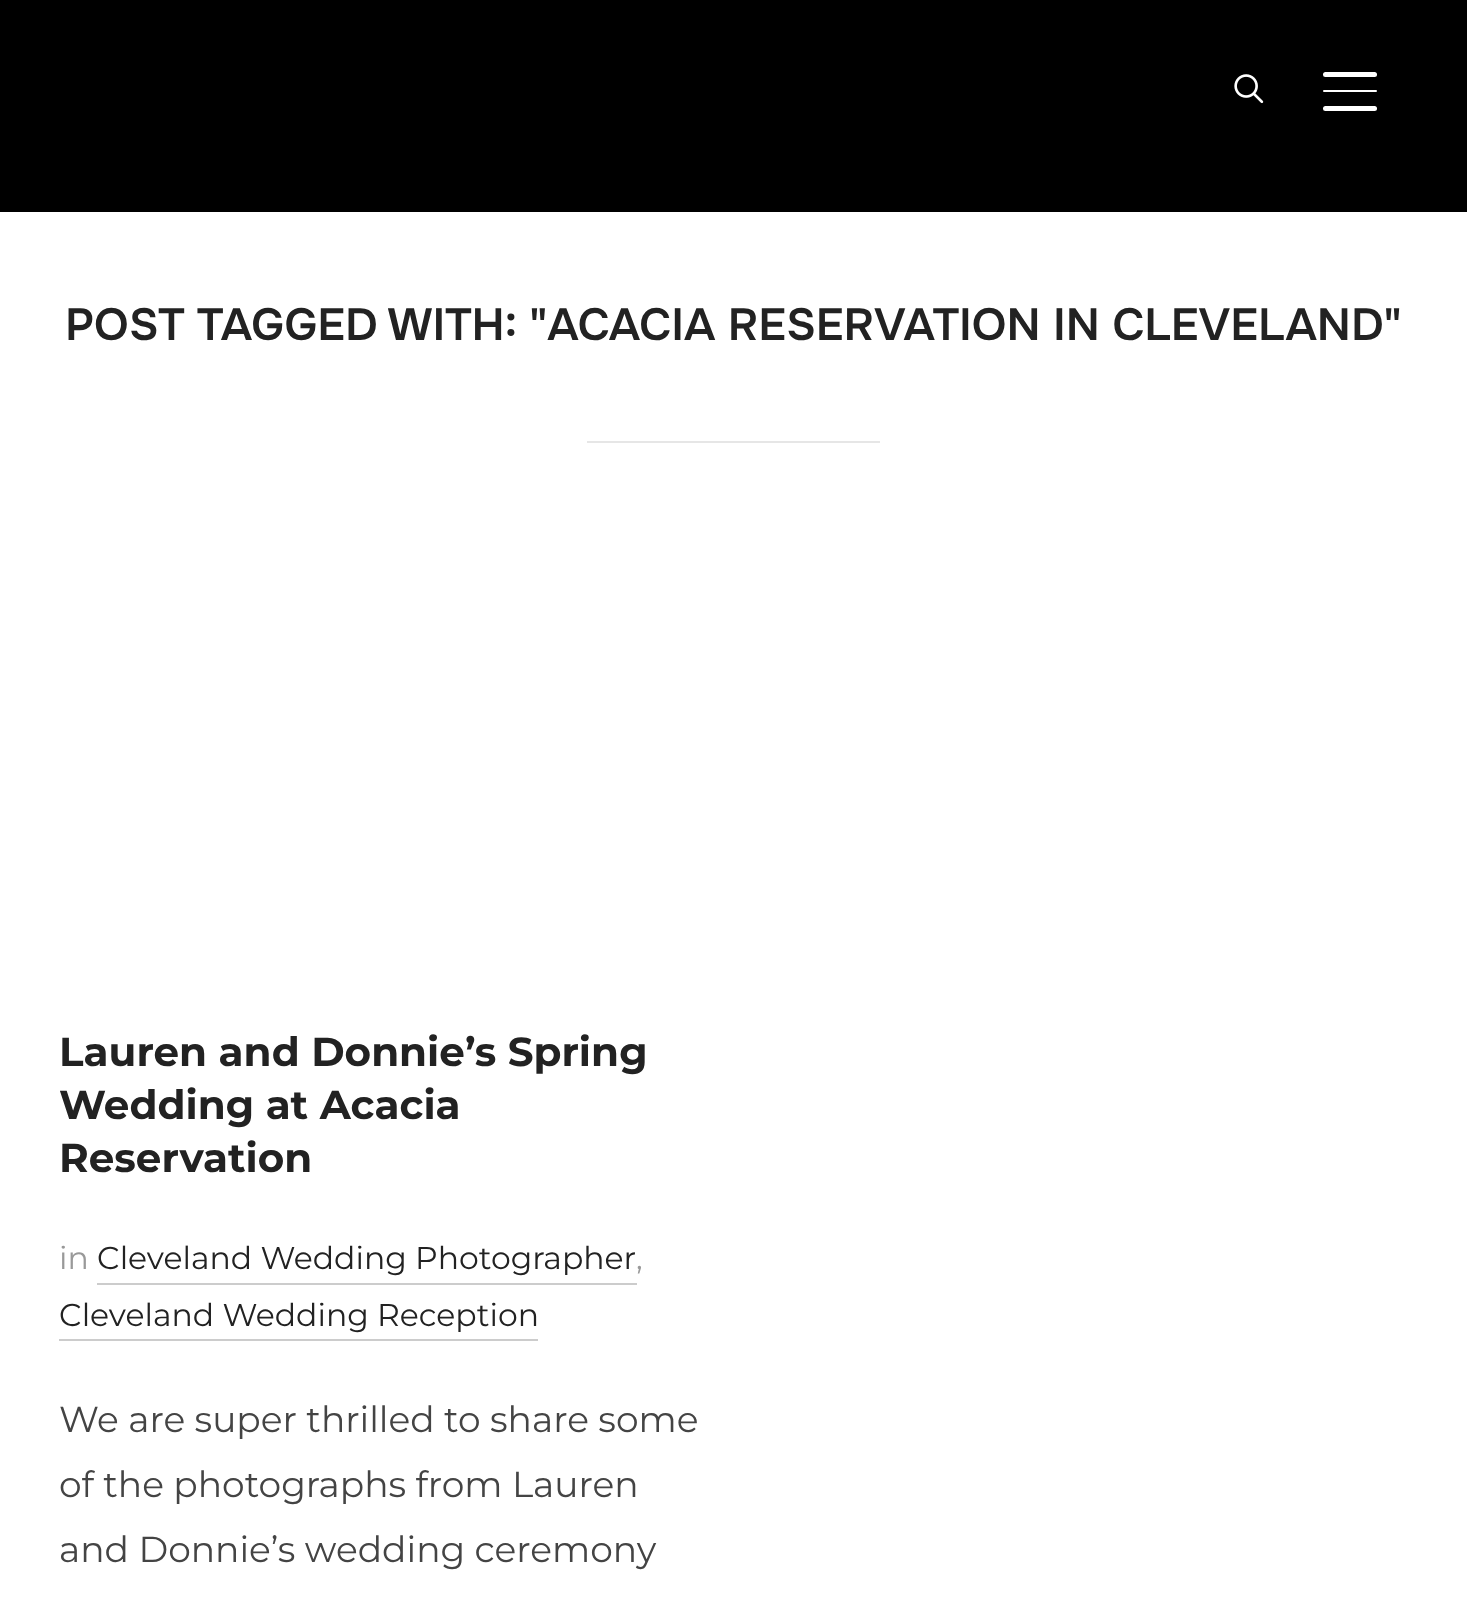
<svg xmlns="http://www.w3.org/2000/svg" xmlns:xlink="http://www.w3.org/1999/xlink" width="1467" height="1600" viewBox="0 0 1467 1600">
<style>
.cls-1{font:600 45px Onest;fill:#222222}
.cls-2{font:bold 40.5px Montserrat;fill:#222222}
.cls-3{font:31.5px Montserrat;fill:#999999}
.cls-4{font:31.5px Montserrat;fill:#222222}
.cls-5{font:36px Montserrat;fill:#444444}
</style>
<rect width="100%" height="100%" fill="#ffffff"/>
<rect fill="#000000" x="0" y="0" width="1467" height="212"/>
<image xlink:href="image0.png" x="1234" y="74" width="30" height="30"/>
<rect fill="#ffffff" x="1323" y="72" width="54" height="5" rx="2.5"/>
<rect fill="#ffffff" x="1323" y="90" width="54" height="2" rx="1"/>
<rect fill="#ffffff" x="1323" y="106" width="54" height="5" rx="2.5"/>
<rect fill="#e6e6e6" x="587" y="441" width="293" height="2"/>
<rect fill="#cccccc" x="97" y="1283" width="540" height="2"/>
<rect fill="#cccccc" x="59" y="1339" width="479" height="2"/>
<text class="cls-1" x="65" y="340">POST TAGGED WITH: "ACACIA RESERVATION IN CLEVELAND"</text>
<text class="cls-2"><tspan x="59" y="1066">Lauren and Donnie’s Spring</tspan><tspan x="59" y="1119">Wedding at Acacia</tspan><tspan x="59" y="1172">Reservation</tspan></text>
<text class="cls-3" x="59" y="1269">in</text>
<text class="cls-4" x="97" y="1269">Cleveland Wedding Photographer</text>
<text class="cls-3" x="636" y="1269">,</text>
<text class="cls-4" x="59" y="1326">Cleveland Wedding Reception</text>
<text class="cls-5"><tspan x="59" y="1432">We are super thrilled to share some</tspan><tspan x="59" y="1497">of the photographs from Lauren</tspan><tspan x="59" y="1562">and Donnie’s wedding ceremony</tspan></text>
</svg>
